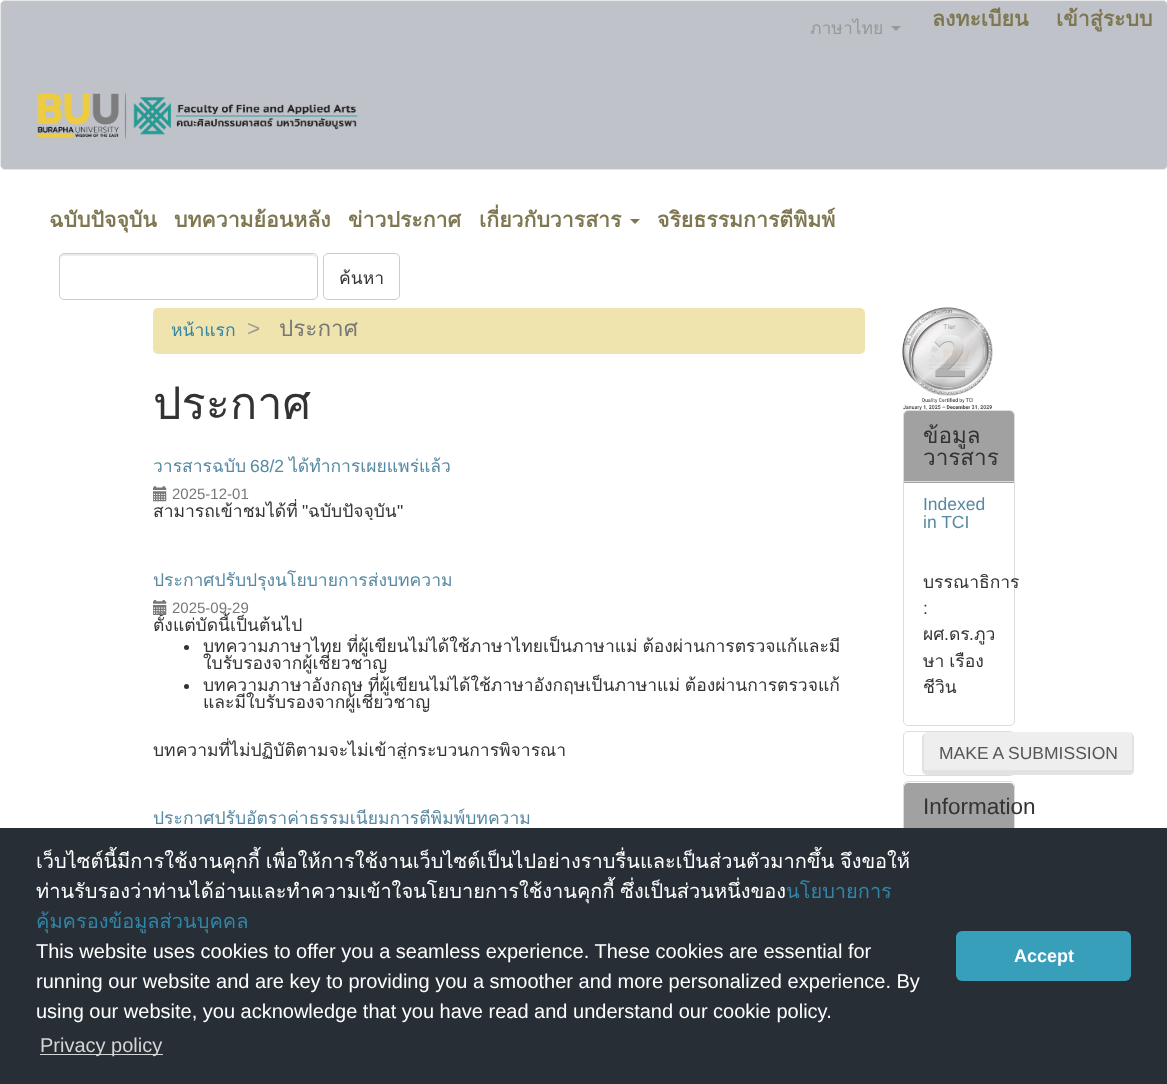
<svg xmlns="http://www.w3.org/2000/svg" xmlns:xlink="http://www.w3.org/1999/xlink" width="1167" height="1084" viewBox="0 0 1167 1084">
<style>
.cls-1{font:17.5px Loma;fill:#999999}
.cls-2{font:bold 21.25px Loma;fill:#7e7751}
.cls-3{font:17.5px Loma;fill:#333333}
.cls-4{font:17.5px Loma;fill:#3285a6}
.cls-5{font:22.5px Liberation Sans;fill:#999999}
.cls-6{font:22.5px Loma;fill:#777777}
.cls-7{font:45px Loma;fill:#333333}
.cls-8{font:17.5px Loma;fill:#5789a2}
.cls-9{font:17.5px Liberation Sans;fill:#5789a2}
.cls-10{font:15px Liberation Sans;fill:#777777}
.cls-11{font:17.5px Liberation Sans;fill:#333333}
.cls-12{font:22.5px Loma;fill:#333333}
.cls-13{font:17.5px Liberation Sans;fill:#555555}
.cls-14{font:22.5px Liberation Sans;fill:#333333}
.cls-15{font:20px Loma;fill:#ffffff}
.cls-16{font:20px Loma;fill:#3285a6}
.cls-17{font:20px Liberation Sans;fill:#ffffff}
.cls-18{font:20px Liberation Sans;fill:#d4d5d7}
.cls-19{font:bold 18px Liberation Sans;fill:#ffffff}
</style>
<defs>
<clipPath id="clip1"><rect x="153" y="441" width="712" height="79"/></clipPath>
<clipPath id="clip2"><rect x="153" y="555" width="712" height="204"/></clipPath>
</defs>
<rect width="100%" height="100%" fill="#ffffff"/>
<rect fill="#bfc3c9" stroke="#e7e7e7" x="0.5" y="0.5" width="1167" height="169" rx="4.5"/>
<path fill="#999999" d="M891 26H901L896 31Z"/>
<image xlink:href="image0.png" x="37" y="92" width="321" height="47"/>
<path fill="#7e7751" d="M630 219H640L635 224Z"/>
<path fill="#ececec" d="M64 256H312C315 256 316 258 316 260V258C316 256 314 254 312 254H64C62 254 60 256 60 258V260C60 258 62 256 64 256Z"/>
<rect fill="none" stroke="#cccccc" x="59.5" y="253.5" width="258" height="46" rx="4.5"/>
<rect fill="none" stroke="#cccccc" x="323.5" y="253.5" width="76" height="46" rx="4.5"/>
<rect fill="#efe3ae" x="153" y="308" width="712" height="46" rx="5"/>
<circle fill="#333333" cx="186.5" cy="647.5" r="2.5"/>
<circle fill="#333333" cx="186.5" cy="686.5" r="2.5"/>
<image xlink:href="image3.png" x="902" y="307" width="91" height="103"/>
<rect fill="none" stroke="#dddddd" x="903.5" y="410.5" width="111" height="315" rx="4.5"/>
<path fill="#a1a1a1" d="M908 411H1010C1012 411 1014 413 1014 415V483H904V415C904 413 906 411 908 411Z"/>
<rect fill="#dddddd" x="904" y="481" width="110" height="1"/>
<rect fill="none" stroke="#dddddd" x="903.5" y="731.5" width="111" height="44" rx="4.5"/>
<path fill="#eeeeee" d="M928 732H1129C1131 732 1132 735 1132 738V770H924V738C924 735 925 732 928 732Z"/>
<path fill="#e2e2e2" fill-rule="evenodd" d="M928 732H1129C1132 732 1134 735 1134 738V770C1134 773 1132 775 1129 775H928C925 775 922 773 922 770V738C922 735 925 732 928 732ZM928 732H1129C1131 732 1132 735 1132 738V770H924V738C924 735 925 732 928 732Z"/>
<rect fill="none" stroke="#dddddd" x="903.5" y="781.5" width="111" height="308" rx="4.5"/>
<path fill="#a1a1a1" d="M908 783H1010C1012 783 1014 785 1014 787V831H904V787C904 785 906 783 908 783Z"/>
<rect fill="#272e35" x="0" y="828" width="1167" height="256"/>
<rect fill="#d4d5d7" x="40" y="1054" width="123" height="1"/>
<rect fill="#389fbb" x="956" y="931" width="175" height="50" rx="6"/>
<text class="cls-1" x="810" y="34">ภาษาไทย</text>
<text class="cls-2" x="932" y="26">ลงทะเบียน</text>
<text class="cls-2" x="1056" y="26">เข้าสู่ระบบ</text>
<text class="cls-2" x="49" y="227">ฉบับปัจจุบัน</text>
<text class="cls-2" x="174" y="227">บทความย้อนหลัง</text>
<text class="cls-2" x="348" y="227">ข่าวประกาศ</text>
<text class="cls-2" x="479" y="227">เกี่ยวกับวารสาร</text>
<text class="cls-2" x="657" y="227">จริยธรรมการตีพิมพ์</text>
<text class="cls-3" x="339" y="284">ค้นหา</text>
<text class="cls-4" x="171" y="336">หน้าแรก</text>
<text class="cls-5" x="247" y="336">&gt;</text>
<text class="cls-6" x="279" y="336">ประกาศ</text>
<text class="cls-7" x="153" y="419">ประกาศ</text>
<text class="cls-8" x="153" y="472">วารสารฉบับ</text>
<text class="cls-9" x="250" y="472">68/2</text>
<text class="cls-8" x="289" y="472">ได้ทำการเผยแพร่แล้ว</text>
<text class="cls-10" x="172" y="499">2025-12-01</text>
<text class="cls-3" x="153" y="517">สามารถเข้าชมได้ที่</text>
<image xlink:href="image1.png" x="153" y="486" width="14" height="16"/>
<text class="cls-11" x="302" y="517">"</text>
<g clip-path="url(#clip1)">
<text class="cls-3" x="308" y="517">ฉบับปัจจุบัน</text>
</g>
<text class="cls-11" x="397" y="517">"</text>
<text class="cls-8" x="153" y="586">ประกาศปรับปรุงนโยบายการส่งบทความ</text>
<text class="cls-10" x="172" y="613">2025-09-29</text>
<g clip-path="url(#clip2)">
<text class="cls-3" x="153" y="631">ตั้งแต่บัดนี้เป็นต้นไป</text>
</g>
<image xlink:href="image2.png" x="153" y="600" width="14" height="15"/>
<text class="cls-3"><tspan x="203" y="652" word-spacing="-1">บทความภาษาไทย ที่ผู้เขียนไม่ได้ใช้ภาษาไทยเป็นภาษาแม่ ต้องผ่านการตรวจแก้และมี</tspan><tspan x="203" y="669">ใบรับรองจากผู้เชี่ยวชาญ</tspan><tspan x="203" y="691" word-spacing="-1">บทความภาษาอังกฤษ ที่ผู้เขียนไม่ได้ใช้ภาษาอังกฤษเป็นภาษาแม่ ต้องผ่านการตรวจแก้</tspan><tspan x="203" y="708">และมีใบรับรองจากผู้เชี่ยวชาญ</tspan></text>
<g clip-path="url(#clip2)">
<text class="cls-3" x="153" y="756">บทความที่ไม่ปฏิบัติตามจะไม่เข้าสู่กระบวนการพิจารณา</text>
</g>
<text class="cls-8" x="153" y="824">ประกาศปรับอัตราค่าธรรมเนียมการตีพิมพ์บทความ</text>
<text class="cls-12"><tspan x="923" y="443">ข้อมูล</tspan><tspan x="923" y="465">วารสาร</tspan></text>
<text class="cls-9"><tspan x="923" y="510">Indexed</tspan><tspan x="923" y="528">in TCI</tspan></text>
<text class="cls-3" x="923" y="588">บรรณาธิการ</text>
<text class="cls-11" x="923" y="614">:</text>
<text class="cls-3" x="923" y="640">ผศ</text>
<text class="cls-11" x="944" y="640">.</text>
<text class="cls-3" x="949" y="640">ดร</text>
<text class="cls-11" x="969" y="640">.</text>
<text class="cls-3" x="974" y="640">ภูว</text>
<text class="cls-3"><tspan x="923" y="667" word-spacing="-1">ษา เรือง</tspan><tspan x="923" y="693">ชีวิน</tspan></text>
<text class="cls-13" x="939" y="759">MAKE A SUBMISSION</text>
<text class="cls-14" x="923" y="814">Information</text>
<text class="cls-15"><tspan x="36" y="868" word-spacing="-1">เว็บไซต์นี้มีการใช้งานคุกกี้ เพื่อให้การใช้งานเว็บไซต์เป็นไปอย่างราบรื่นและเป็นส่วนตัวมากขึ้น จึงขอให้</tspan><tspan x="36" y="898" word-spacing="-1">ท่านรับรองว่าท่านได้อ่านและทำความเข้าใจนโยบายการใช้งานคุกกี้ ซึ่งเป็นส่วนหนึ่งของ</tspan></text>
<text class="cls-16" x="786" y="898">นโยบายการ</text>
<text class="cls-16" x="36" y="928">คุ้มครองข้อมูลส่วนบุคคล</text>
<text class="cls-17"><tspan x="36" y="958">This website uses cookies to offer you a seamless experience. These cookies are essential for</tspan><tspan x="36" y="988">running our website and are key to providing you a smoother and more personalized experience. By</tspan><tspan x="36" y="1018">using our website, you acknowledge that you have read and understand our cookie policy.</tspan></text>
<text class="cls-18" x="40" y="1052">Privacy policy</text>
<text class="cls-19" x="1014" y="962">Accept</text>
</svg>
